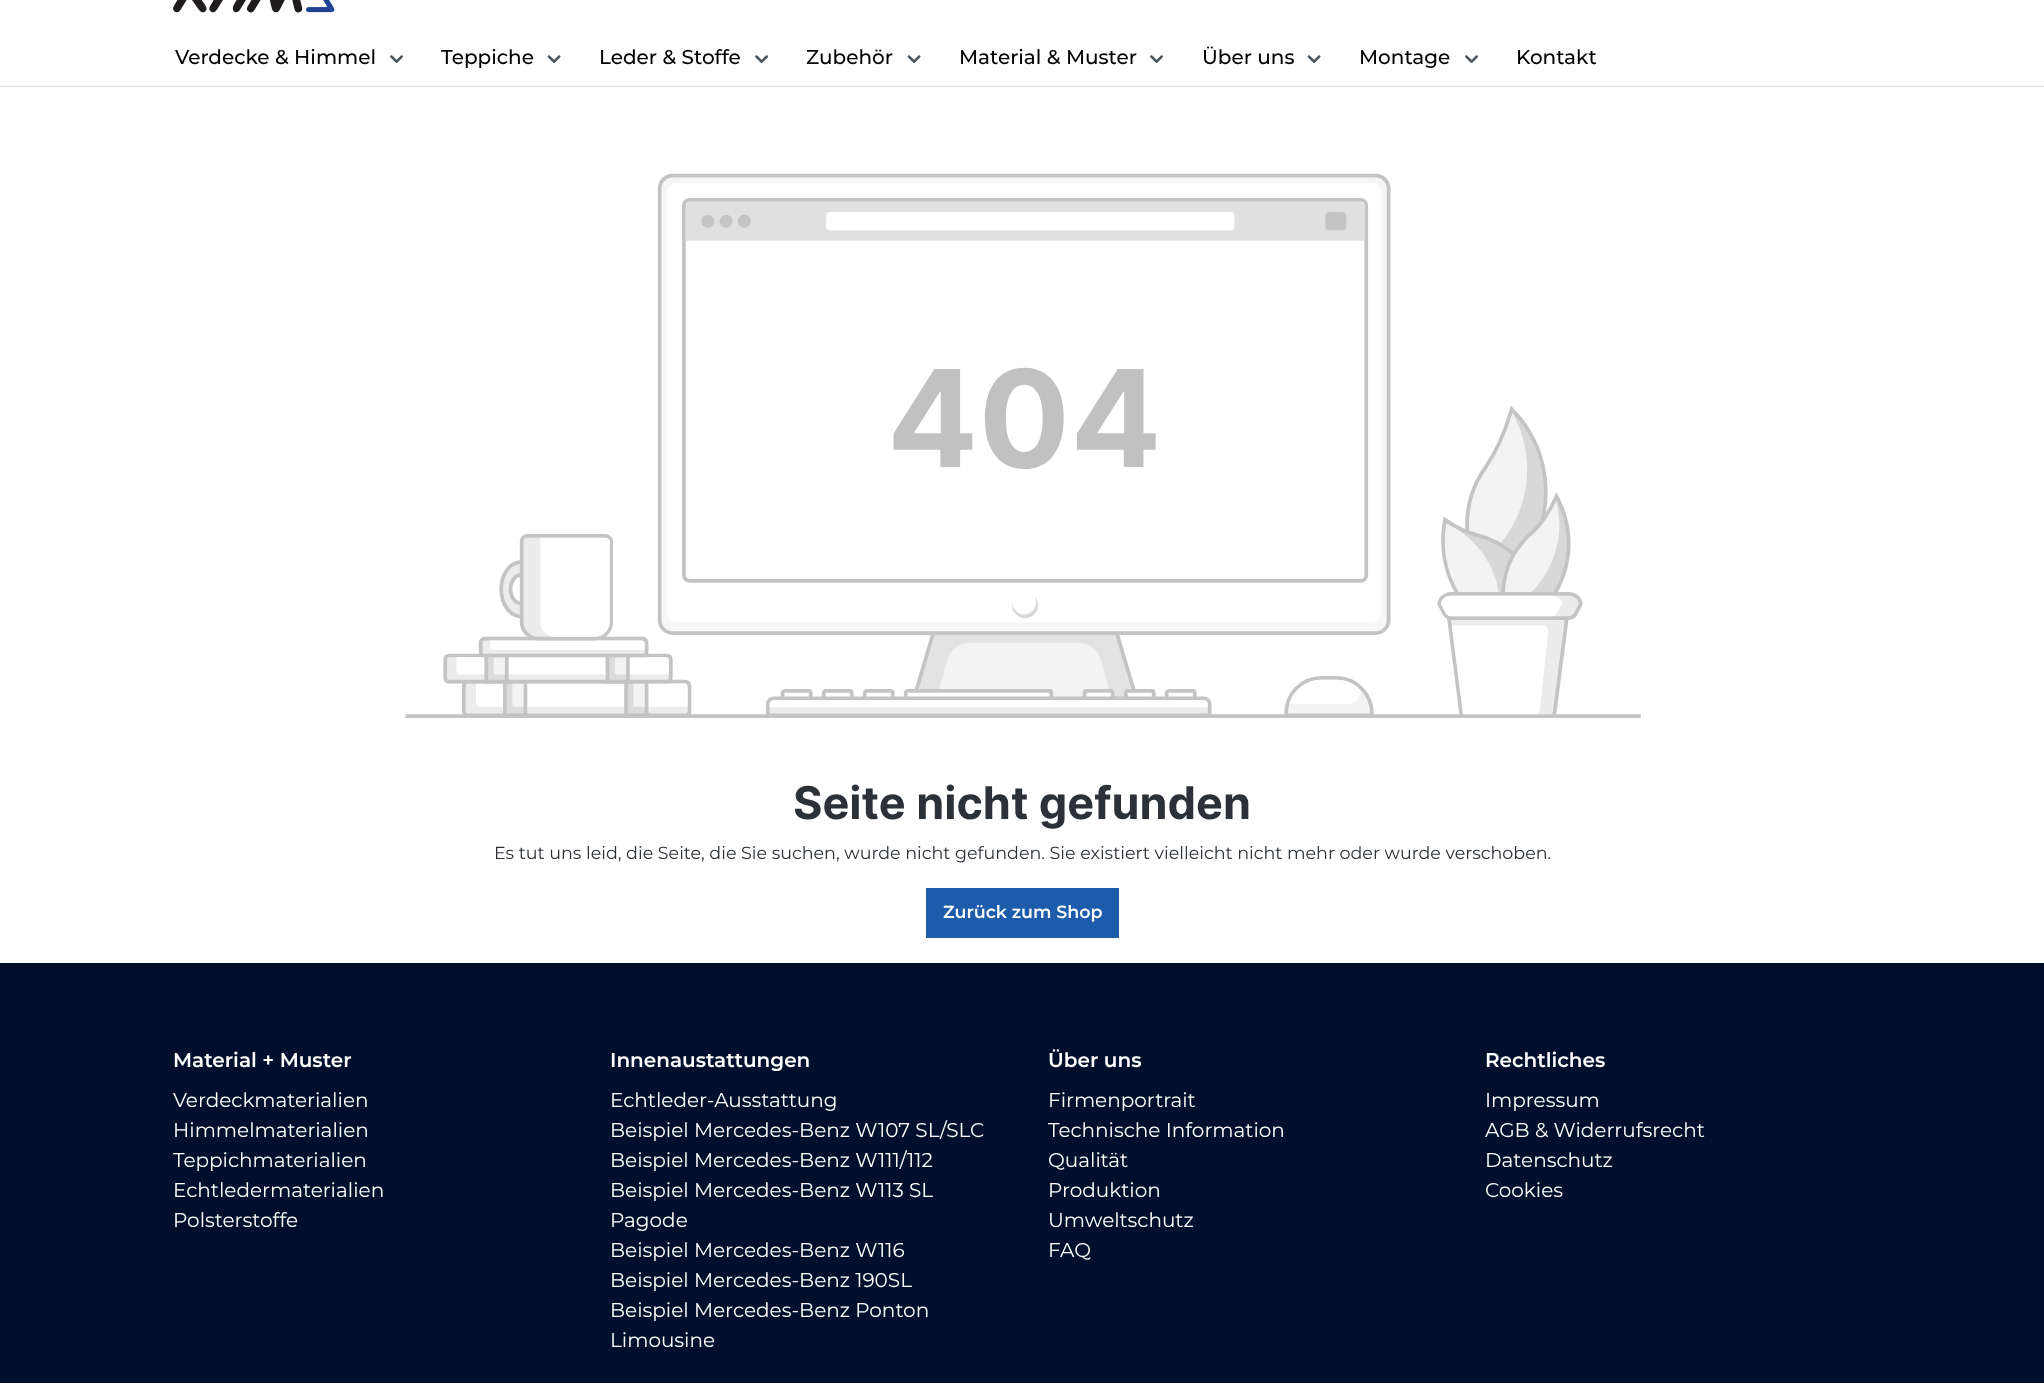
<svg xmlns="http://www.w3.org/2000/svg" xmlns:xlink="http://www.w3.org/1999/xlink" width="2044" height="1383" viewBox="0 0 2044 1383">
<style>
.cls-1{font:500 20px Montserrat;fill:#000000}
.cls-2{font:bold 45px Inter;fill:#2b3136}
.cls-3{font:17.5px Montserrat;fill:#2b3136}
.cls-4{font:600 17.5px Montserrat;fill:#ffffff}
.cls-5{font:600 20px Montserrat;fill:#ffffff}
.cls-6{font:20px Montserrat;fill:#ffffff}
</style>
<rect width="100%" height="100%" fill="#ffffff"/>
<rect fill="#e0e0e0" x="0" y="86" width="2044" height="1"/>
<image xlink:href="image0.png" x="173" y="0" width="162" height="13"/>
<image xlink:href="image1.png" x="390" y="55" width="13" height="8"/>
<image xlink:href="image2.png" x="547" y="55" width="14" height="8"/>
<image xlink:href="image1.png" x="755" y="55" width="13" height="8"/>
<image xlink:href="image2.png" x="907" y="55" width="14" height="8"/>
<image xlink:href="image1.png" x="1150" y="55" width="13" height="8"/>
<image xlink:href="image2.png" x="1307" y="55" width="14" height="8"/>
<image xlink:href="image1.png" x="1465" y="55" width="13" height="8"/>
<image xlink:href="image3.png" x="405" y="173" width="1236" height="545"/>
<rect fill="#1d5cab" x="926" y="888" width="193" height="50"/>
<rect fill="#000f2c" x="0" y="963" width="2044" height="420"/>
<text class="cls-1" x="175" y="64">Verdecke &amp; Himmel</text>
<text class="cls-1" x="441" y="64">Teppiche</text>
<text class="cls-1" x="599" y="64">Leder &amp; Stoffe</text>
<text class="cls-1" x="806" y="64">Zubehör</text>
<text class="cls-1" x="959" y="64">Material &amp; Muster</text>
<text class="cls-1" x="1202" y="64">Über uns</text>
<text class="cls-1" x="1359" y="64">Montage</text>
<text class="cls-1" x="1516" y="64">Kontakt</text>
<text class="cls-2" x="793" y="819">Seite nicht gefunden</text>
<text class="cls-3" x="494" y="859">Es tut uns leid, die Seite, die Sie suchen, wurde nicht gefunden. Sie existiert vielleicht nicht mehr oder wurde verschoben.</text>
<text class="cls-4" x="943" y="918">Zurück zum Shop</text>
<text class="cls-5" x="173" y="1067">Material + Muster</text>
<text class="cls-6"><tspan x="173" y="1107">Verdeckmaterialien</tspan><tspan x="173" y="1137">Himmelmaterialien</tspan><tspan x="173" y="1167">Teppichmaterialien</tspan><tspan x="173" y="1197">Echtledermaterialien</tspan><tspan x="173" y="1227">Polsterstoffe</tspan></text>
<text class="cls-5" x="610" y="1067">Innenaustattungen</text>
<text class="cls-6"><tspan x="610" y="1107">Echtleder-Ausstattung</tspan><tspan x="610" y="1137">Beispiel Mercedes-Benz W107 SL/SLC</tspan><tspan x="610" y="1167">Beispiel Mercedes-Benz W111/112</tspan><tspan x="610" y="1197">Beispiel Mercedes-Benz W113 SL</tspan><tspan x="610" y="1227">Pagode</tspan><tspan x="610" y="1257">Beispiel Mercedes-Benz W116</tspan><tspan x="610" y="1287">Beispiel Mercedes-Benz 190SL</tspan><tspan x="610" y="1317">Beispiel Mercedes-Benz Ponton</tspan><tspan x="610" y="1347">Limousine</tspan></text>
<text class="cls-5" x="1048" y="1067">Über uns</text>
<text class="cls-6"><tspan x="1048" y="1107">Firmenportrait</tspan><tspan x="1048" y="1137">Technische Information</tspan><tspan x="1048" y="1167">Qualität</tspan><tspan x="1048" y="1197">Produktion</tspan><tspan x="1048" y="1227">Umweltschutz</tspan><tspan x="1048" y="1257">FAQ</tspan></text>
<text class="cls-5" x="1485" y="1067">Rechtliches</text>
<text class="cls-6"><tspan x="1485" y="1107">Impressum</tspan><tspan x="1485" y="1137">AGB &amp; Widerrufsrecht</tspan><tspan x="1485" y="1167">Datenschutz</tspan><tspan x="1485" y="1197">Cookies</tspan></text>
</svg>
